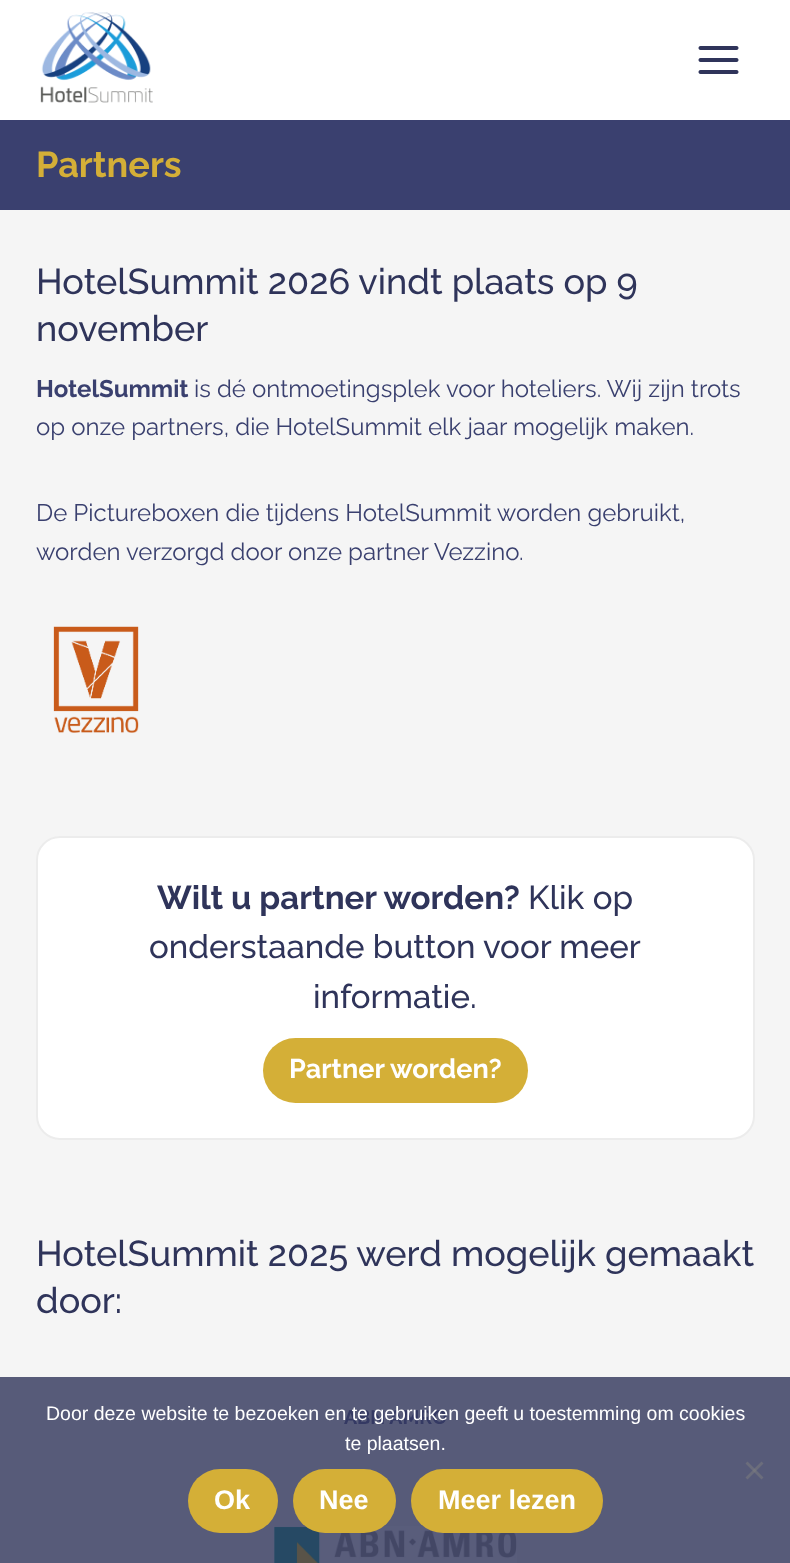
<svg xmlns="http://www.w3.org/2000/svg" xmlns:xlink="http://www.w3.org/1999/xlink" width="790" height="1563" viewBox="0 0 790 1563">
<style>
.cls-1{font:bold 36px Raleway;fill:#d4af37}
.cls-2{font:500 36px Raleway;fill:#2f345a}
.cls-3{font:bold 24px Raleway;fill:#3a406f}
.cls-4{font:24px Raleway;fill:#3a406f}
.cls-5{font:bold 33px Raleway;fill:#2f345a}
.cls-6{font:500 33px Raleway;fill:#2f345a}
.cls-7{font:bold 27px Raleway;fill:#ffffff}
.cls-8{font:bold 19.5px Raleway;fill:#343963}
.cls-9{font:19.5px Liberation Sans;fill:#ffffff}
.cls-10{font:bold 27px Liberation Sans;fill:#ffffff}
</style>
<rect width="100%" height="100%" fill="#f5f5f5"/>
<rect fill="#575b79" x="0" y="1377" width="790" height="186"/>
<rect fill="#ffffff" x="0" y="0" width="790" height="120"/>
<image xlink:href="image0.png" x="40" y="12" width="113" height="91"/>
<image xlink:href="image1.png" x="698" y="46" width="41" height="28"/>
<rect fill="#3a406f" x="0" y="120" width="790" height="90"/>
<image xlink:href="image2.png" x="53" y="626" width="86" height="107"/>
<rect fill="#ffffff" stroke="#ececec" stroke-width="2" x="37" y="837" width="717" height="302" rx="23"/>
<rect fill="#d4af37" x="263" y="1038" width="265" height="65" rx="32.5"/>
<image xlink:href="image3.png" x="273" y="1526" width="244" height="37"/>
<path fill="#808080" fill-opacity="0.5" d="M761.5 1461.5L763.5 1463.5L747.5 1479.5L745.5 1477.5Z"/>
<path fill="#808080" fill-opacity="0.5" d="M745.5 1463.5L747.5 1461.5L763.5 1477.5L761.5 1479.5Z"/>
<rect fill="#d4af37" x="188" y="1469" width="90" height="64" rx="32"/>
<rect fill="#d4af37" x="293" y="1469" width="103" height="64" rx="32"/>
<rect fill="#d4af37" x="411" y="1469" width="192" height="64" rx="32"/>
<text class="cls-1" x="36" y="177">Partners</text>
<text class="cls-2"><tspan x="36" y="294">HotelSummit 2026 vindt plaats op 9</tspan><tspan x="36" y="341">november</tspan></text>
<text class="cls-3" x="36" y="397">HotelSummit</text>
<text class="cls-4" x="194" y="397">is dé ontmoetingsplek voor hoteliers. Wij zijn trots</text>
<text class="cls-4" x="36" y="435">op onze partners, die HotelSummit elk jaar mogelijk maken.</text>
<text class="cls-4"><tspan x="36" y="521">De Pictureboxen die tijdens HotelSummit worden gebruikt,</tspan><tspan x="36" y="560">worden verzorgd door onze partner Vezzino.</tspan></text>
<text class="cls-5" x="157" y="909">Wilt u partner worden?</text>
<text class="cls-6" x="528" y="909">Klik op</text>
<text class="cls-6" x="149" y="958">onderstaande button voor meer</text>
<text class="cls-6" x="313" y="1008">informatie.</text>
<text class="cls-7" x="289" y="1078">Partner worden?</text>
<text class="cls-2"><tspan x="36" y="1266">HotelSummit 2025 werd mogelijk gemaakt</tspan><tspan x="36" y="1313">door:</tspan></text>
<text class="cls-8" x="344" y="1424">ABN AMRO</text>
<text class="cls-9" x="46" y="1420">Door deze website te bezoeken en te gebruiken geeft u toestemming om cookies</text>
<text class="cls-9" x="345" y="1450">te plaatsen.</text>
<text class="cls-10" x="214" y="1509">Ok</text>
<text class="cls-10" x="319" y="1509">Nee</text>
<text class="cls-10" x="438" y="1509">Meer lezen</text>
</svg>
